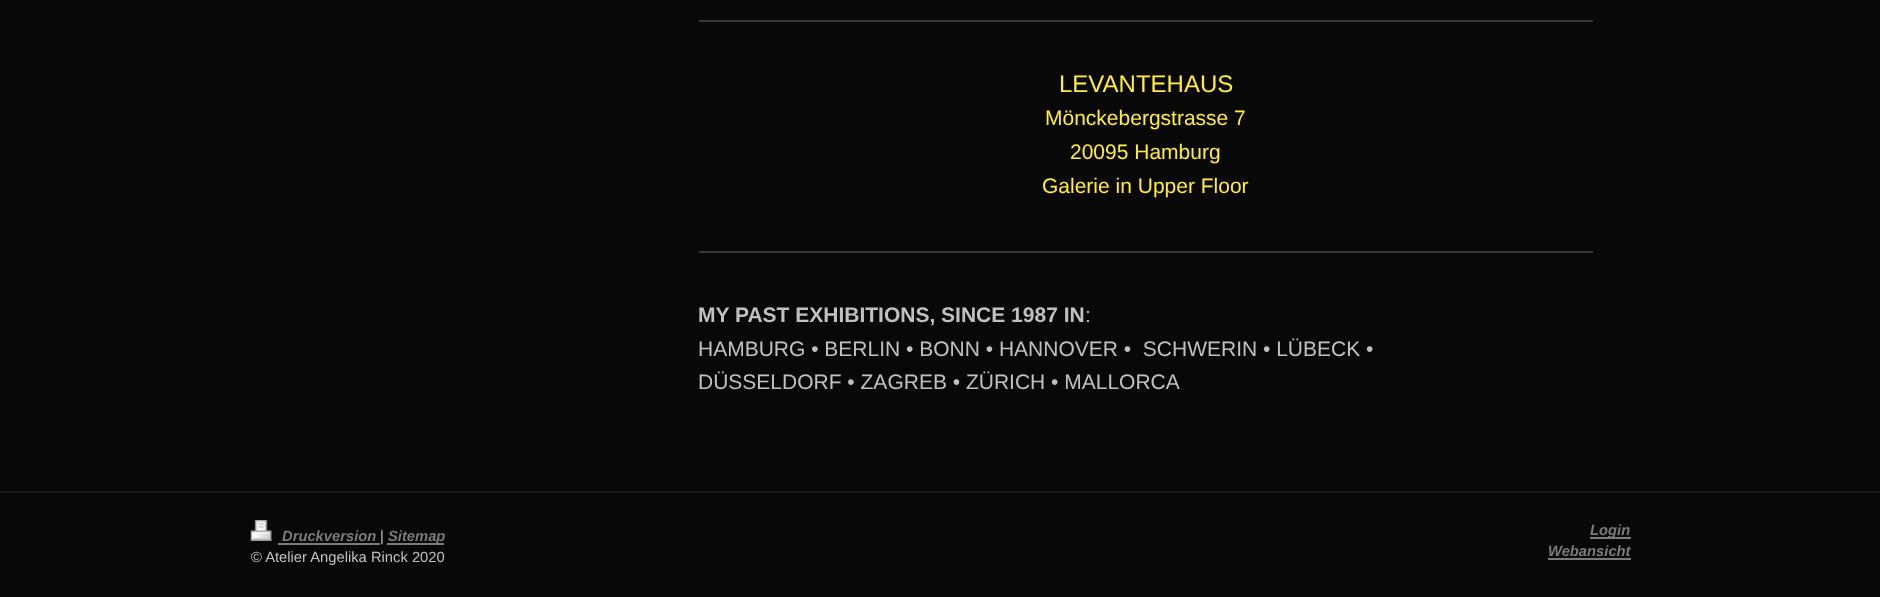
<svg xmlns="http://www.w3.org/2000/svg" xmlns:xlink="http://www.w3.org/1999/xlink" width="1880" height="597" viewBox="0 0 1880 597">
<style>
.cls-1{font:24px Liberation Sans;fill:#ffeb3c}
.cls-2{font:21px Liberation Sans;fill:#ffeb3c}
.cls-3{font:bold 21px Liberation Sans;fill:#c0c0c0}
.cls-4{font:21px Liberation Sans;fill:#c0c0c0}
.cls-5{font:italic bold 14.75px Liberation Sans;fill:#7b7b7b}
.cls-6{font:14.75px Liberation Sans;fill:#c0c0c0}
</style>
<defs>
<clipPath id="clip1"><rect x="251" y="521" width="1380" height="46"/></clipPath>
</defs>
<rect width="100%" height="100%" fill="#080808"/>
<rect fill="#363636" x="699" y="20" width="894" height="2"/>
<rect fill="#363636" x="699" y="251" width="894" height="2"/>
<rect fill="#1a1a1a" x="0" y="491" width="1880" height="2"/>
<image xlink:href="image0.png" x="250" y="520" width="22" height="21"/>
<rect fill="#7b7b7b" x="278" y="543" width="102" height="2"/>
<rect fill="#7b7b7b" x="387" y="543" width="57" height="2"/>
<rect fill="#7b7b7b" x="1590" y="537" width="41" height="2"/>
<rect fill="#7b7b7b" x="1548" y="558" width="83" height="2"/>
<text class="cls-1" x="1059" y="92">LEVANTEHAUS</text>
<text class="cls-2" x="1045" y="125">Mönckebergstrasse 7</text>
<text class="cls-2" x="1070" y="159">20095 Hamburg</text>
<text class="cls-2" x="1042" y="193">Galerie in Upper Floor</text>
<text class="cls-3" x="698" y="322">MY PAST EXHIBITIONS, SINCE 1987 IN</text>
<text class="cls-4" x="1085" y="322">:</text>
<text class="cls-4" xml:space="preserve"><tspan x="698" y="356">HAMBURG • BERLIN • BONN • HANNOVER •  SCHWERIN • LÜBECK •</tspan><tspan x="698" y="389">DÜSSELDORF • ZAGREB • ZÜRICH • MALLORCA</tspan></text>
<text class="cls-5" x="282" y="541">Druckversion</text>
<text class="cls-6" x="380" y="541">|</text>
<text class="cls-5" x="388" y="541">Sitemap</text>
<g clip-path="url(#clip1)">
<text class="cls-6" x="251" y="562">© Atelier Angelika Rinck 2020</text>
</g>
<text class="cls-5" x="1590" y="535">Login</text>
<text class="cls-5" x="1548" y="556">Webansicht</text>
</svg>
